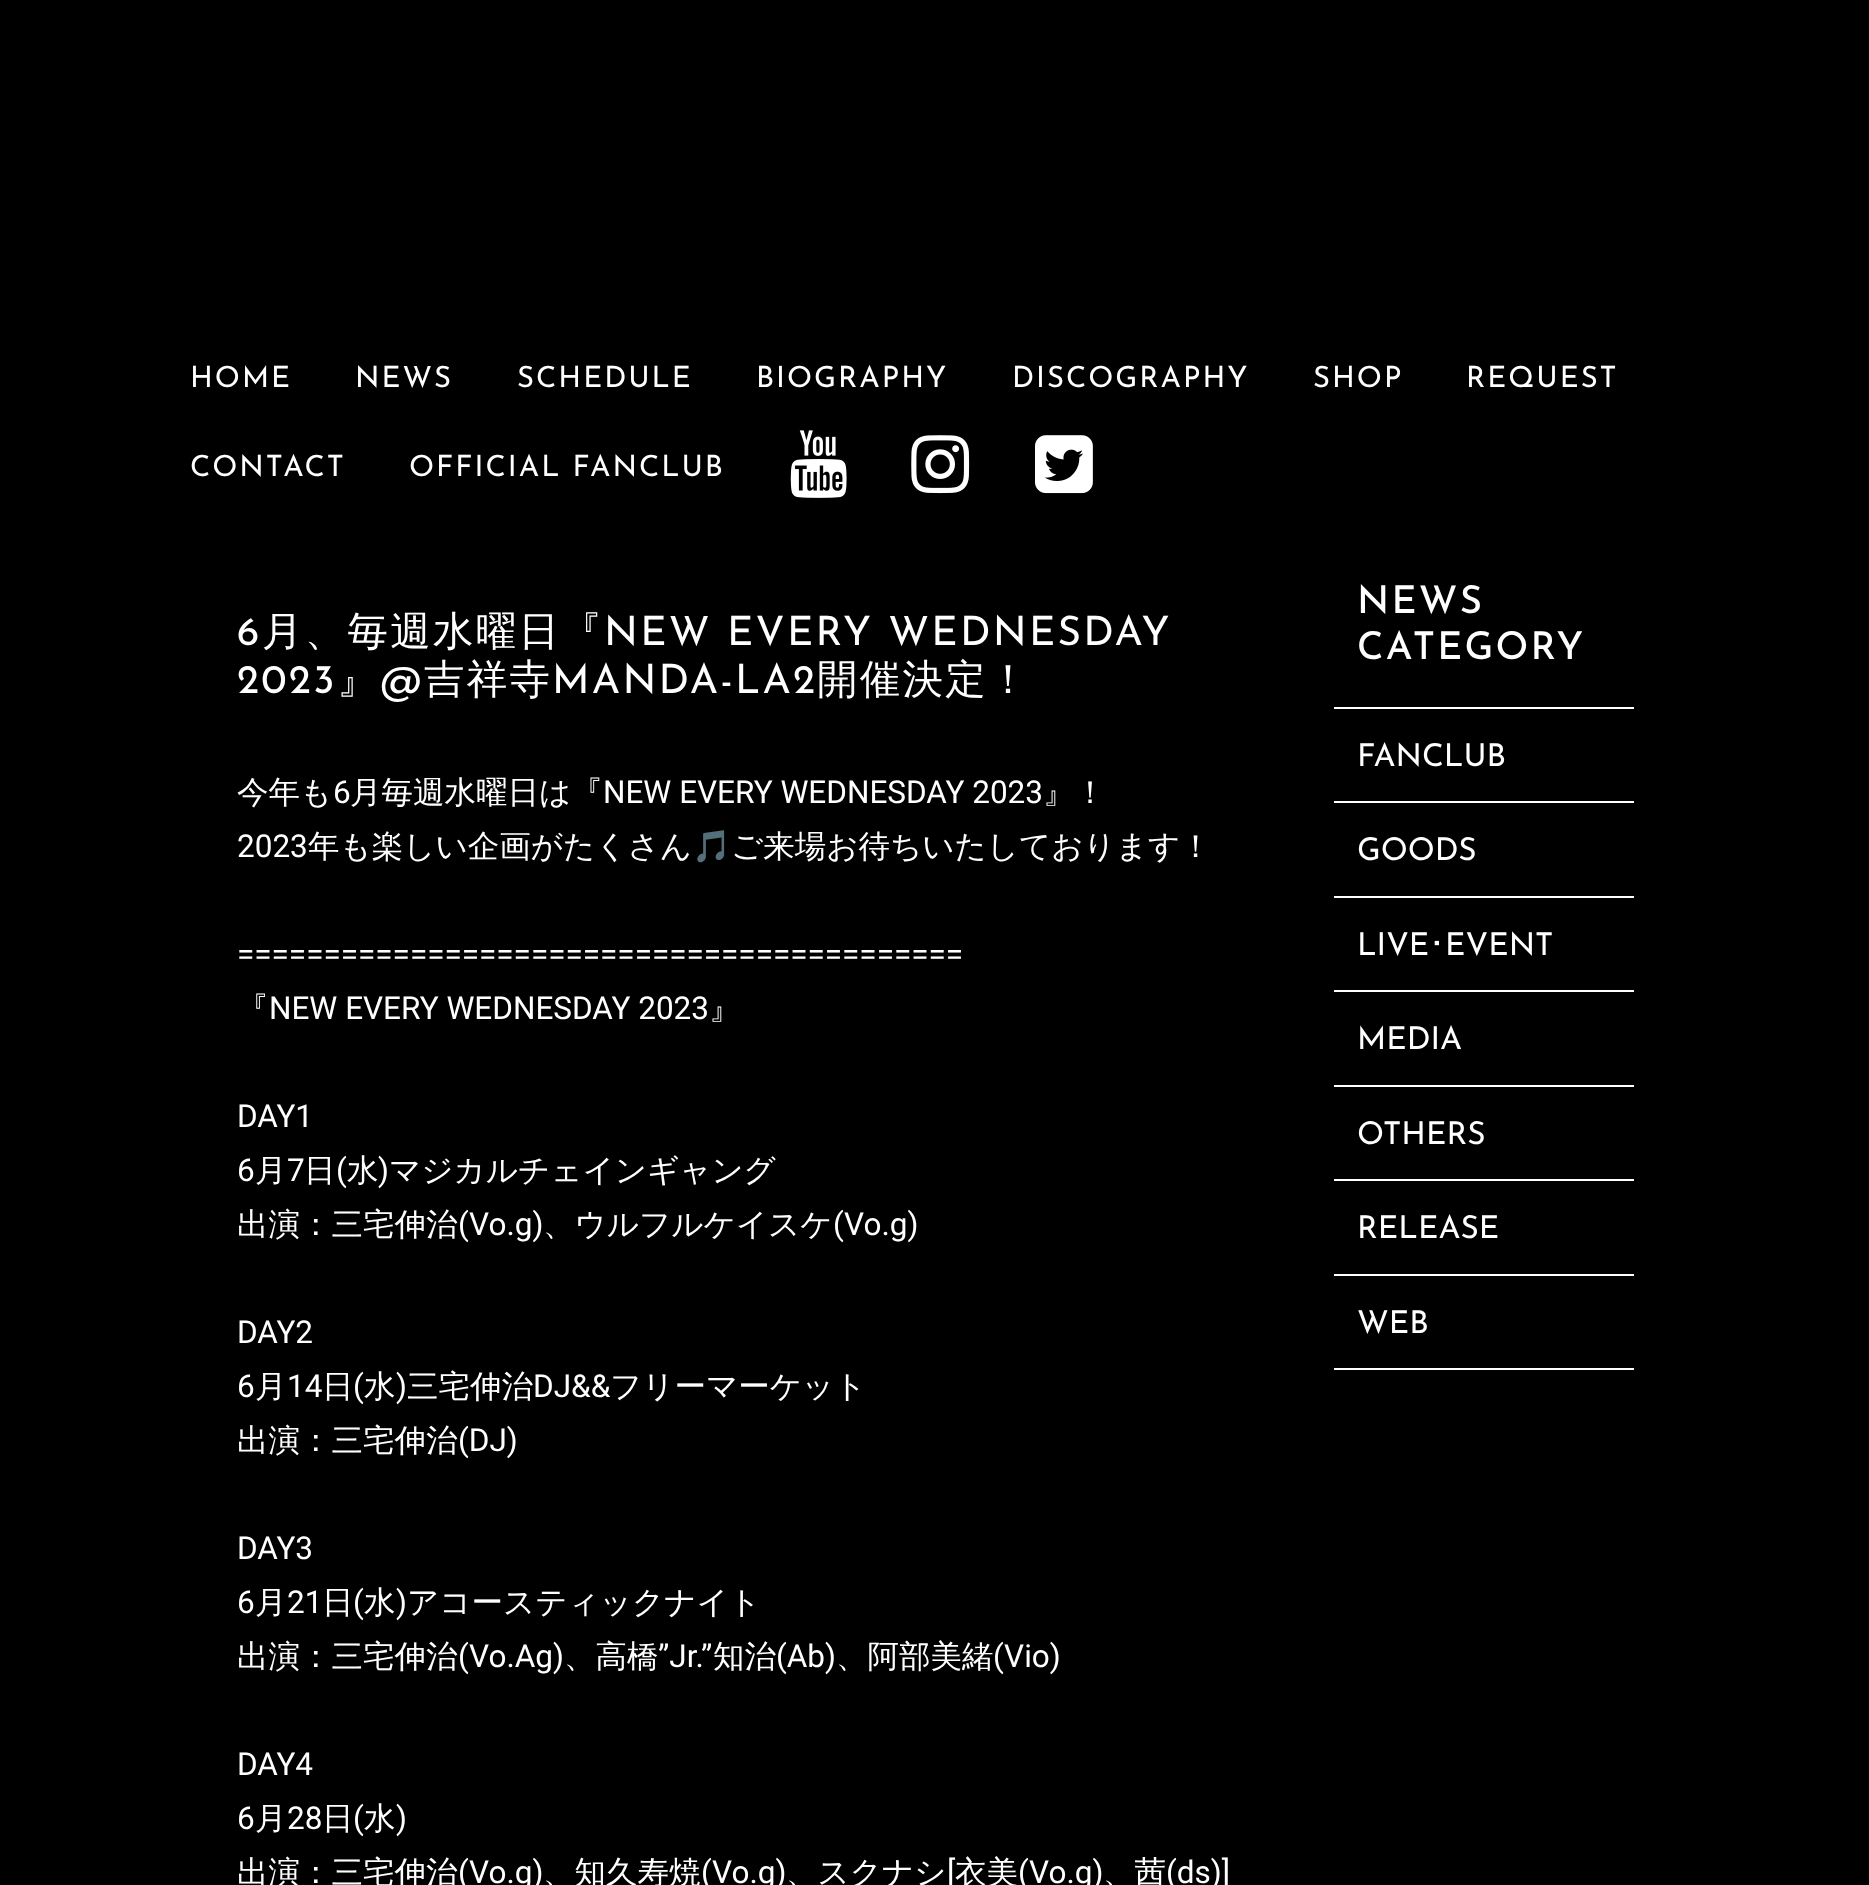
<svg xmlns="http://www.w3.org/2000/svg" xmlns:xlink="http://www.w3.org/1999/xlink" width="1869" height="1885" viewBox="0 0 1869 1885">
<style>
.cls-1{font:29.25px Josefin Sans;letter-spacing:2px;fill:#ffffff}
.cls-2{font:40.5px Josefin Sans;letter-spacing:2.25px;fill:#ffffff}
.cls-3{font:500 40.5px WenQuanYi Zen Hei;letter-spacing:2.25px;fill:#ffffff}
.cls-4{font:500 31.5px WenQuanYi Zen Hei;fill:#ffffff}
.cls-5{font:31.5px Roboto;fill:#ffffff}
.cls-6{font:31.5px Noto Color Emoji;fill:#ffffff}
.cls-7{font:500 38.25px Josefin Sans;letter-spacing:2.25px;fill:#ffffff}
.cls-8{font:31.5px Josefin Sans;fill:#ffffff}
.cls-9{font:31.5px IPAPGothic;fill:#ffffff}
</style>
<rect width="100%" height="100%" fill="#000000"/>
<image xlink:href="image0.png" x="790" y="430" width="57" height="68"/>
<image xlink:href="image1.png" x="911" y="435" width="59" height="59"/>
<image xlink:href="image2.png" x="1035" y="435" width="58" height="59"/>
<rect fill="#ffffff" x="1334" y="707" width="300" height="2"/>
<rect fill="#ffffff" x="1334" y="801" width="300" height="2"/>
<rect fill="#ffffff" x="1334" y="896" width="300" height="2"/>
<rect fill="#ffffff" x="1334" y="990" width="300" height="2"/>
<rect fill="#ffffff" x="1334" y="1085" width="300" height="2"/>
<rect fill="#ffffff" x="1334" y="1179" width="300" height="2"/>
<rect fill="#ffffff" x="1334" y="1274" width="300" height="2"/>
<rect fill="#ffffff" x="1334" y="1368" width="300" height="2"/>
<text class="cls-1" x="190" y="387">HOME</text>
<text class="cls-1" x="355" y="387">NEWS</text>
<text class="cls-1" x="517" y="387">SCHEDULE</text>
<text class="cls-1" x="756" y="387">BIOGRAPHY</text>
<text class="cls-1" x="1012" y="387">DISCOGRAPHY</text>
<text class="cls-1" x="1313" y="387">SHOP</text>
<text class="cls-1" x="1466" y="387">REQUEST</text>
<text class="cls-1" x="190" y="476">CONTACT</text>
<text class="cls-1" x="409" y="476">OFFICIAL FANCLUB</text>
<text class="cls-2" x="237" y="645">6</text>
<text class="cls-3" x="262" y="645">月、毎週水曜日『</text>
<text class="cls-2" x="604" y="645">NEW EVERY WEDNESDAY</text>
<text class="cls-2" x="237" y="693">2023</text>
<text class="cls-3" x="337" y="693">』</text>
<text class="cls-2" x="380" y="693">@</text>
<text class="cls-3" x="424" y="693">吉祥寺</text>
<text class="cls-2" x="552" y="693">MANDA-LA2</text>
<text class="cls-3" x="817" y="693">開催決定！</text>
<text class="cls-4" x="237" y="803">今年も</text>
<text class="cls-5" x="333" y="803">6</text>
<text class="cls-4" x="350" y="803">月毎週水曜日は『</text>
<text class="cls-5" x="603" y="803">NEW EVERY WEDNESDAY 2023</text>
<text class="cls-4" x="1043" y="803">』！</text>
<text class="cls-5" x="237" y="857">2023</text>
<text class="cls-4" x="308" y="857">年も楽しい企画がたくさん</text>
<text class="cls-6" x="692" y="857">🎵</text>
<text class="cls-4" x="731" y="857">ご来場お待ちいたしております！</text>
<text class="cls-5" x="237" y="965">==========================================</text>
<text class="cls-4" x="237" y="1019">『</text>
<text class="cls-5" x="269" y="1019">NEW EVERY WEDNESDAY 2023</text>
<text class="cls-4" x="709" y="1019">』</text>
<text class="cls-5"><tspan x="237" y="1127">DAY1</tspan><tspan x="237" y="1181">6</tspan></text>
<text class="cls-4" x="255" y="1181">月</text>
<text class="cls-5" x="287" y="1181">7</text>
<text class="cls-4" x="304" y="1181">日</text>
<text class="cls-5" x="336" y="1181">(</text>
<text class="cls-4" x="347" y="1181">水</text>
<text class="cls-5" x="378" y="1181">)</text>
<text class="cls-4" x="389" y="1181">マジカルチェインギャング</text>
<text class="cls-4" x="237" y="1235">出演：三宅伸治</text>
<text class="cls-5" x="458" y="1235">(Vo.g)</text>
<text class="cls-4" x="543" y="1235">、ウルフルケイスケ</text>
<text class="cls-5" x="833" y="1235">(Vo.g)</text>
<text class="cls-5"><tspan x="237" y="1343">DAY2</tspan><tspan x="237" y="1397">6</tspan></text>
<text class="cls-4" x="255" y="1397">月</text>
<text class="cls-5" x="287" y="1397">14</text>
<text class="cls-4" x="322" y="1397">日</text>
<text class="cls-5" x="353" y="1397">(</text>
<text class="cls-4" x="364" y="1397">水</text>
<text class="cls-5" x="396" y="1397">)</text>
<text class="cls-4" x="407" y="1397">三宅伸治</text>
<text class="cls-5" x="533" y="1397">DJ&amp;&amp;</text>
<text class="cls-4" x="610" y="1397">フリーマーケット</text>
<text class="cls-4" x="237" y="1451">出演：三宅伸治</text>
<text class="cls-5" x="458" y="1451">(DJ)</text>
<text class="cls-5"><tspan x="237" y="1559">DAY3</tspan><tspan x="237" y="1613">6</tspan></text>
<text class="cls-4" x="255" y="1613">月</text>
<text class="cls-5" x="287" y="1613">21</text>
<text class="cls-4" x="322" y="1613">日</text>
<text class="cls-5" x="353" y="1613">(</text>
<text class="cls-4" x="364" y="1613">水</text>
<text class="cls-5" x="396" y="1613">)</text>
<text class="cls-4" x="407" y="1613">アコースティックナイト</text>
<text class="cls-4" x="237" y="1667">出演：三宅伸治</text>
<text class="cls-5" x="458" y="1667">(Vo.Ag)</text>
<text class="cls-4" x="564" y="1667">、高橋</text>
<text class="cls-5" x="658" y="1667">”Jr.”</text>
<text class="cls-4" x="713" y="1667">知治</text>
<text class="cls-5" x="776" y="1667">(Ab)</text>
<text class="cls-4" x="836" y="1667">、阿部美緒</text>
<text class="cls-5" x="993" y="1667">(Vio)</text>
<text class="cls-5"><tspan x="237" y="1775">DAY4</tspan><tspan x="237" y="1829">6</tspan></text>
<text class="cls-4" x="255" y="1829">月</text>
<text class="cls-5" x="287" y="1829">28</text>
<text class="cls-4" x="322" y="1829">日</text>
<text class="cls-5" x="353" y="1829">(</text>
<text class="cls-4" x="364" y="1829">水</text>
<text class="cls-5" x="396" y="1829">)</text>
<text class="cls-4" x="237" y="1883">出演：三宅伸治</text>
<text class="cls-5" x="458" y="1883">(Vo.g)</text>
<text class="cls-4" x="543" y="1883">、知久寿焼</text>
<text class="cls-5" x="701" y="1883">(Vo.g)</text>
<text class="cls-4" x="786" y="1883">、スクナシ</text>
<text class="cls-5" x="947" y="1883">[</text>
<text class="cls-4" x="955" y="1883">衣美</text>
<text class="cls-5" x="1018" y="1883">(Vo.g)</text>
<text class="cls-4" x="1103" y="1883">、茜</text>
<text class="cls-5" x="1166" y="1883">(ds)]</text>
<text class="cls-7"><tspan x="1357" y="613">NEWS</tspan><tspan x="1357" y="659">CATEGORY</tspan></text>
<text class="cls-8" x="1357" y="766">FANCLUB</text>
<text class="cls-8" x="1357" y="860">GOODS</text>
<text class="cls-8" x="1357" y="955">LIVE</text>
<text class="cls-9" x="1429" y="955">･</text>
<text class="cls-8" x="1445" y="955">EVENT</text>
<text class="cls-8" x="1357" y="1049">MEDIA</text>
<text class="cls-8" x="1357" y="1144">OTHERS</text>
<text class="cls-8" x="1357" y="1238">RELEASE</text>
<text class="cls-8" x="1357" y="1333">WEB</text>
</svg>
